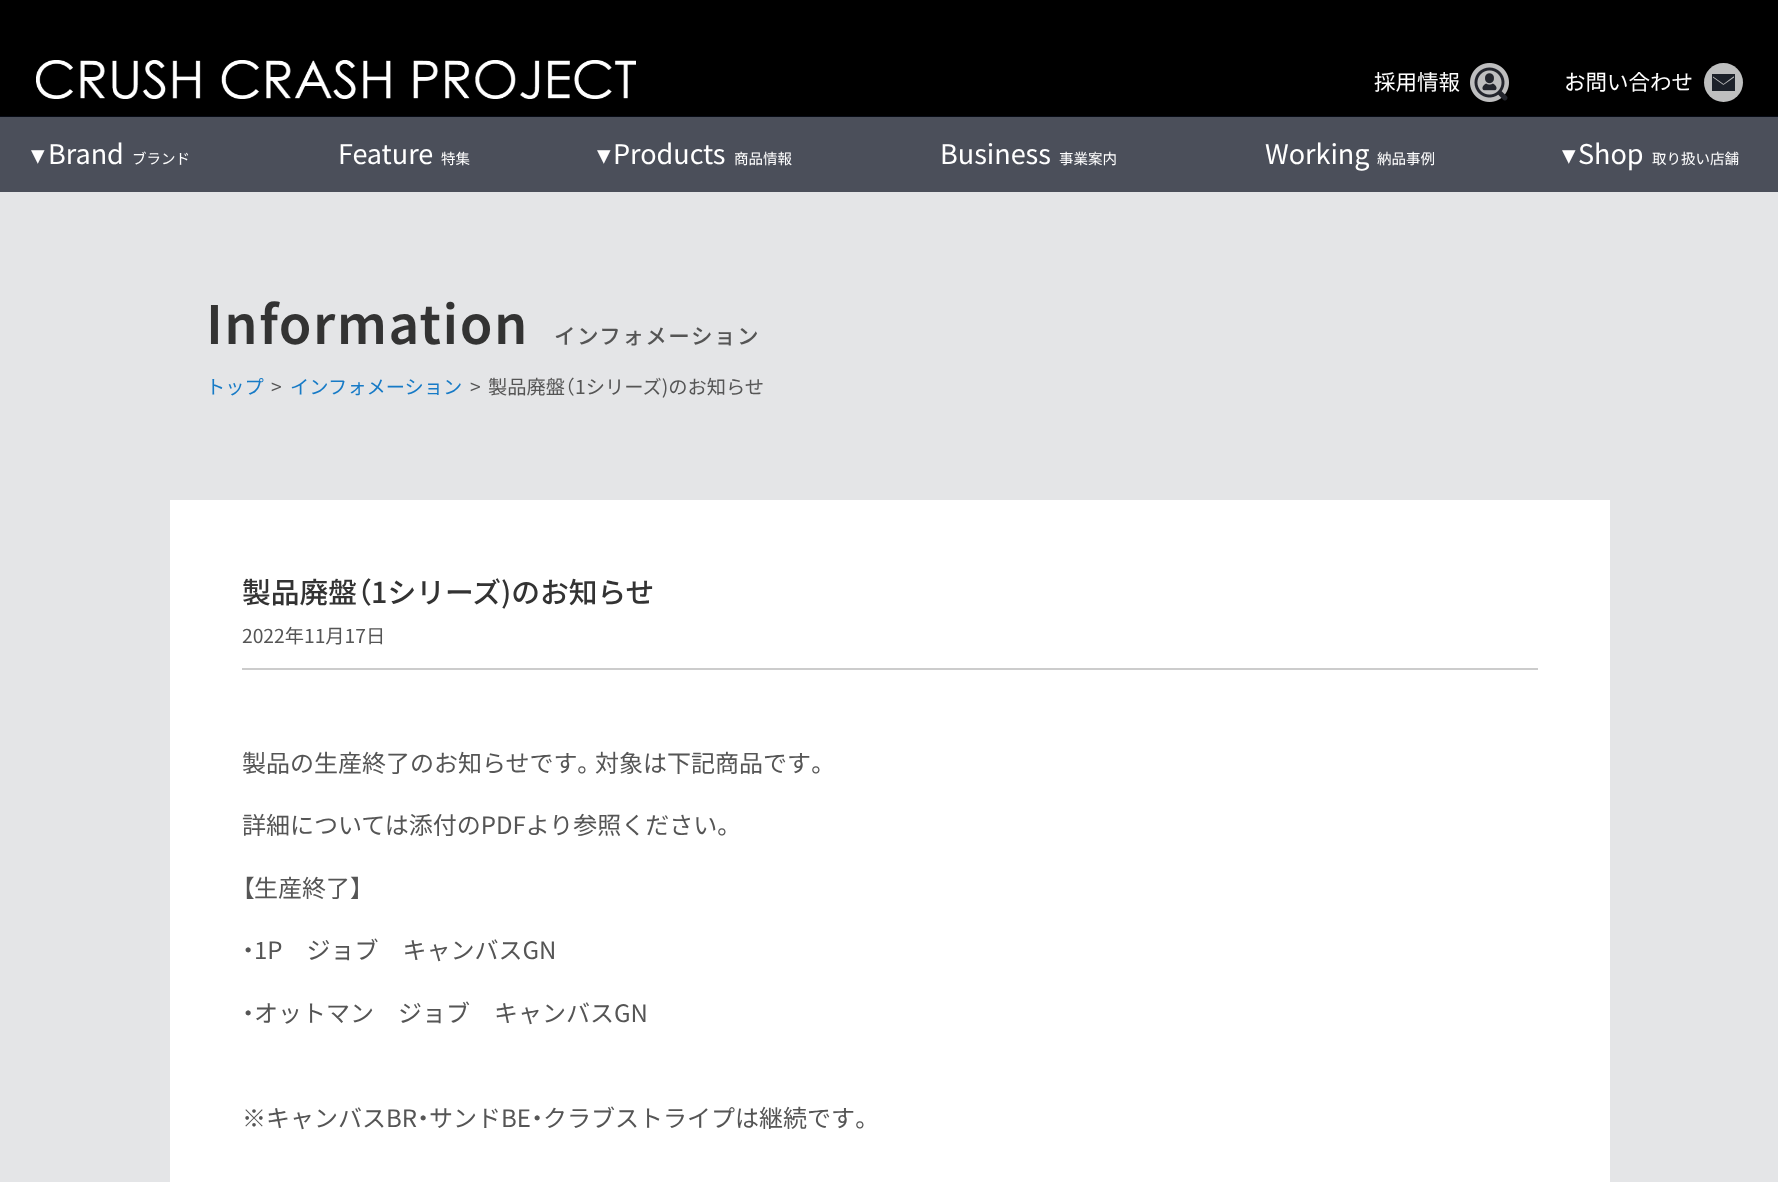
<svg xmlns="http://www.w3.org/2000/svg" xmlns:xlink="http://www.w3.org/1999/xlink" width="1778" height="1182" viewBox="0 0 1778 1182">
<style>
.cls-1{font:21.5px Noto Sans JP;fill:#ffffff}
.cls-2{font:27px DejaVu Sans;fill:#ffffff}
.cls-3{font:27px Noto Sans JP;fill:#ffffff}
.cls-4{font:14.5px Noto Sans JP;fill:#ffffff}
.cls-5{font:600 52.75px Noto Sans JP;letter-spacing:1.5px;fill:#333333}
.cls-6{font:500 21.5px Noto Sans JP;letter-spacing:1.5px;fill:#555555}
.cls-7{font:19.25px Noto Sans JP;fill:#167ac6}
.cls-8{font:19.25px Noto Sans JP;fill:#555555}
.cls-9{font:19.25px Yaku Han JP;fill:#555555}
.cls-10{font:500 28.75px Noto Sans JP;fill:#333333}
.cls-11{font:500 28.75px Yaku Han JP;fill:#333333}
.cls-12{font:24px Noto Sans JP;fill:#555555}
.cls-13{font:24px Yaku Han JP;fill:#555555}
</style>
<rect width="100%" height="100%" fill="#e4e5e7"/>
<rect fill="#4b4f5a" x="0" y="117" width="1778" height="75"/>
<rect fill="#000000" x="0" y="0" width="1778" height="116"/>
<rect fill="#070b15" x="0" y="116" width="1778" height="1"/>
<image xlink:href="image0.png" x="36" y="60" width="600" height="39"/>
<image xlink:href="image1.png" x="1470" y="63" width="39" height="39"/>
<circle fill="#bebfbf" cx="1723.5" cy="82.5" r="19.5"/>
<rect fill="#1c2129" x="1712" y="74" width="23" height="17"/>
<path fill="#bebfbf" d="M1733.5 76.5L1723.5 84L1713 76.5V77.5L1720 82.5C1724 85 1722.5 85.5 1725.5 83.5L1734 77.5V76.5Z"/>
<rect fill="#ffffff" x="170" y="500" width="1440" height="682"/>
<rect fill="#cccccc" x="242" y="668" width="1296" height="2"/>
<text class="cls-1" x="1374" y="90">採用情報</text>
<text class="cls-1" x="1564" y="90">お問い合わせ</text>
<text class="cls-2" x="31" y="164">▾</text>
<text class="cls-3" x="48" y="164">Brand</text>
<text class="cls-4" x="132" y="164">ブランド</text>
<text class="cls-3" x="338" y="164">Feature</text>
<text class="cls-4" x="441" y="164">特集</text>
<text class="cls-2" x="597" y="164">▾</text>
<text class="cls-3" x="613" y="164">Products</text>
<text class="cls-4" x="734" y="164">商品情報</text>
<text class="cls-3" x="940" y="164">Business</text>
<text class="cls-4" x="1059" y="164">事業案内</text>
<text class="cls-3" x="1265" y="164">Working</text>
<text class="cls-4" x="1377" y="164">納品事例</text>
<text class="cls-2" x="1562" y="164">▾</text>
<text class="cls-3" x="1578" y="164">Shop</text>
<text class="cls-4" x="1652" y="164">取り扱い店舗</text>
<text class="cls-5" x="206" y="344">Information</text>
<text class="cls-6" x="554" y="344">インフォメーション</text>
<text class="cls-7" x="206" y="394">トップ</text>
<text class="cls-8" x="271" y="394">&gt;</text>
<text class="cls-7" x="290" y="394">インフォメーション</text>
<text class="cls-8" x="470" y="394">&gt;</text>
<text class="cls-8" x="488" y="394">製品廃盤</text>
<text class="cls-9" x="565" y="394">（</text>
<text class="cls-8" x="575" y="394">1シリーズ)のお知らせ</text>
<text class="cls-10" x="242" y="603">製品廃盤</text>
<text class="cls-11" x="357" y="603">（</text>
<text class="cls-10" x="371" y="603">1シリーズ)のお知らせ</text>
<text class="cls-8" x="242" y="643">2022年11月17日</text>
<text class="cls-12" x="242" y="772">製品の生産終了のお知らせです</text>
<text class="cls-13" x="577" y="772">。</text>
<text class="cls-12" x="595" y="772">対象は下記商品です</text>
<text class="cls-13" x="811" y="772">。</text>
<text class="cls-12" x="242" y="834">詳細については添付のPDFより参照ください</text>
<text class="cls-13" x="717" y="834">。</text>
<text class="cls-13" x="242" y="897">【</text>
<text class="cls-12" x="254" y="897">生産終了</text>
<text class="cls-13" x="350" y="897">】</text>
<text class="cls-13" x="242" y="959">・</text>
<text class="cls-12" x="254" y="959">1P　ジョブ　キャンバスGN</text>
<text class="cls-13" x="242" y="1022">・</text>
<text class="cls-12" x="254" y="1022">オットマン　ジョブ　キャンバスGN</text>
<text class="cls-12" x="242" y="1127">※キャンバスBR</text>
<text class="cls-13" x="417" y="1127">・</text>
<text class="cls-12" x="429" y="1127">サンドBE</text>
<text class="cls-13" x="531" y="1127">・</text>
<text class="cls-12" x="543" y="1127">クラブストライプは継続です</text>
<text class="cls-13" x="855" y="1127">。</text>
</svg>
